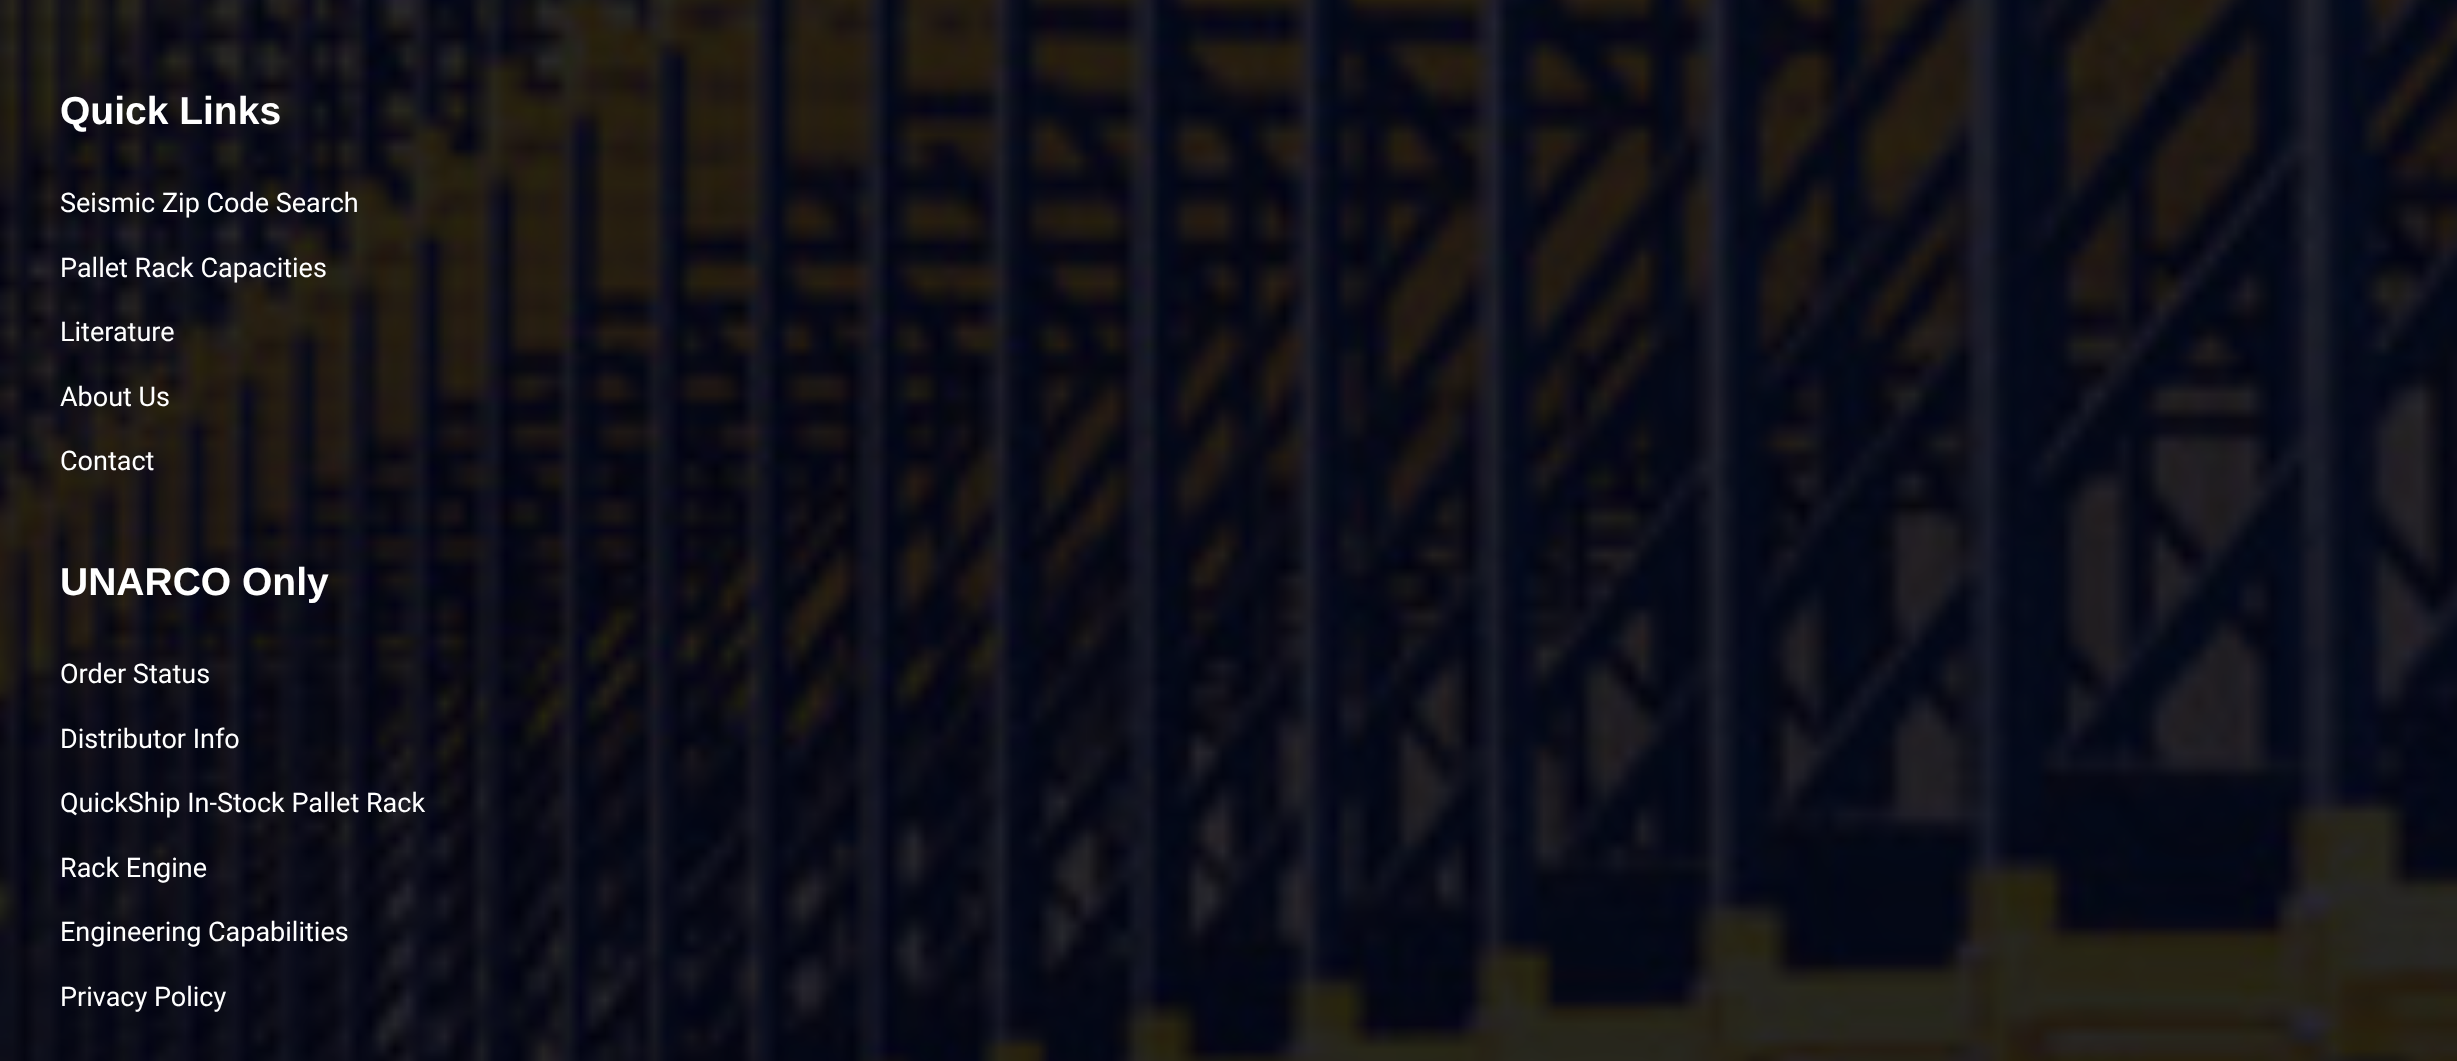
<svg xmlns="http://www.w3.org/2000/svg" xmlns:xlink="http://www.w3.org/1999/xlink" width="2457" height="1061" viewBox="0 0 2457 1061">
<style>
.cls-1{font:bold 39px Liberation Sans;fill:#ffffff}
.cls-2{font:27px Roboto;fill:#ffffff}
</style>
<rect width="100%" height="100%" fill="#ffffff"/>
<image xlink:href="image0.png" x="0" y="0" width="2457" height="1061"/>
<text class="cls-1" x="60" y="124">Quick Links</text>
<text class="cls-2" x="60" y="212">Seismic Zip Code Search</text>
<text class="cls-2" x="60" y="277">Pallet Rack Capacities</text>
<text class="cls-2" x="60" y="341">Literature</text>
<text class="cls-2" x="60" y="406">About Us</text>
<text class="cls-2" x="60" y="470">Contact</text>
<text class="cls-1" x="60" y="595">UNARCO Only</text>
<text class="cls-2" x="60" y="683">Order Status</text>
<text class="cls-2" x="60" y="748">Distributor Info</text>
<text class="cls-2" x="60" y="812">QuickShip In-Stock Pallet Rack</text>
<text class="cls-2" x="60" y="877">Rack Engine</text>
<text class="cls-2" x="60" y="941">Engineering Capabilities</text>
<text class="cls-2" x="60" y="1006">Privacy Policy</text>
</svg>
